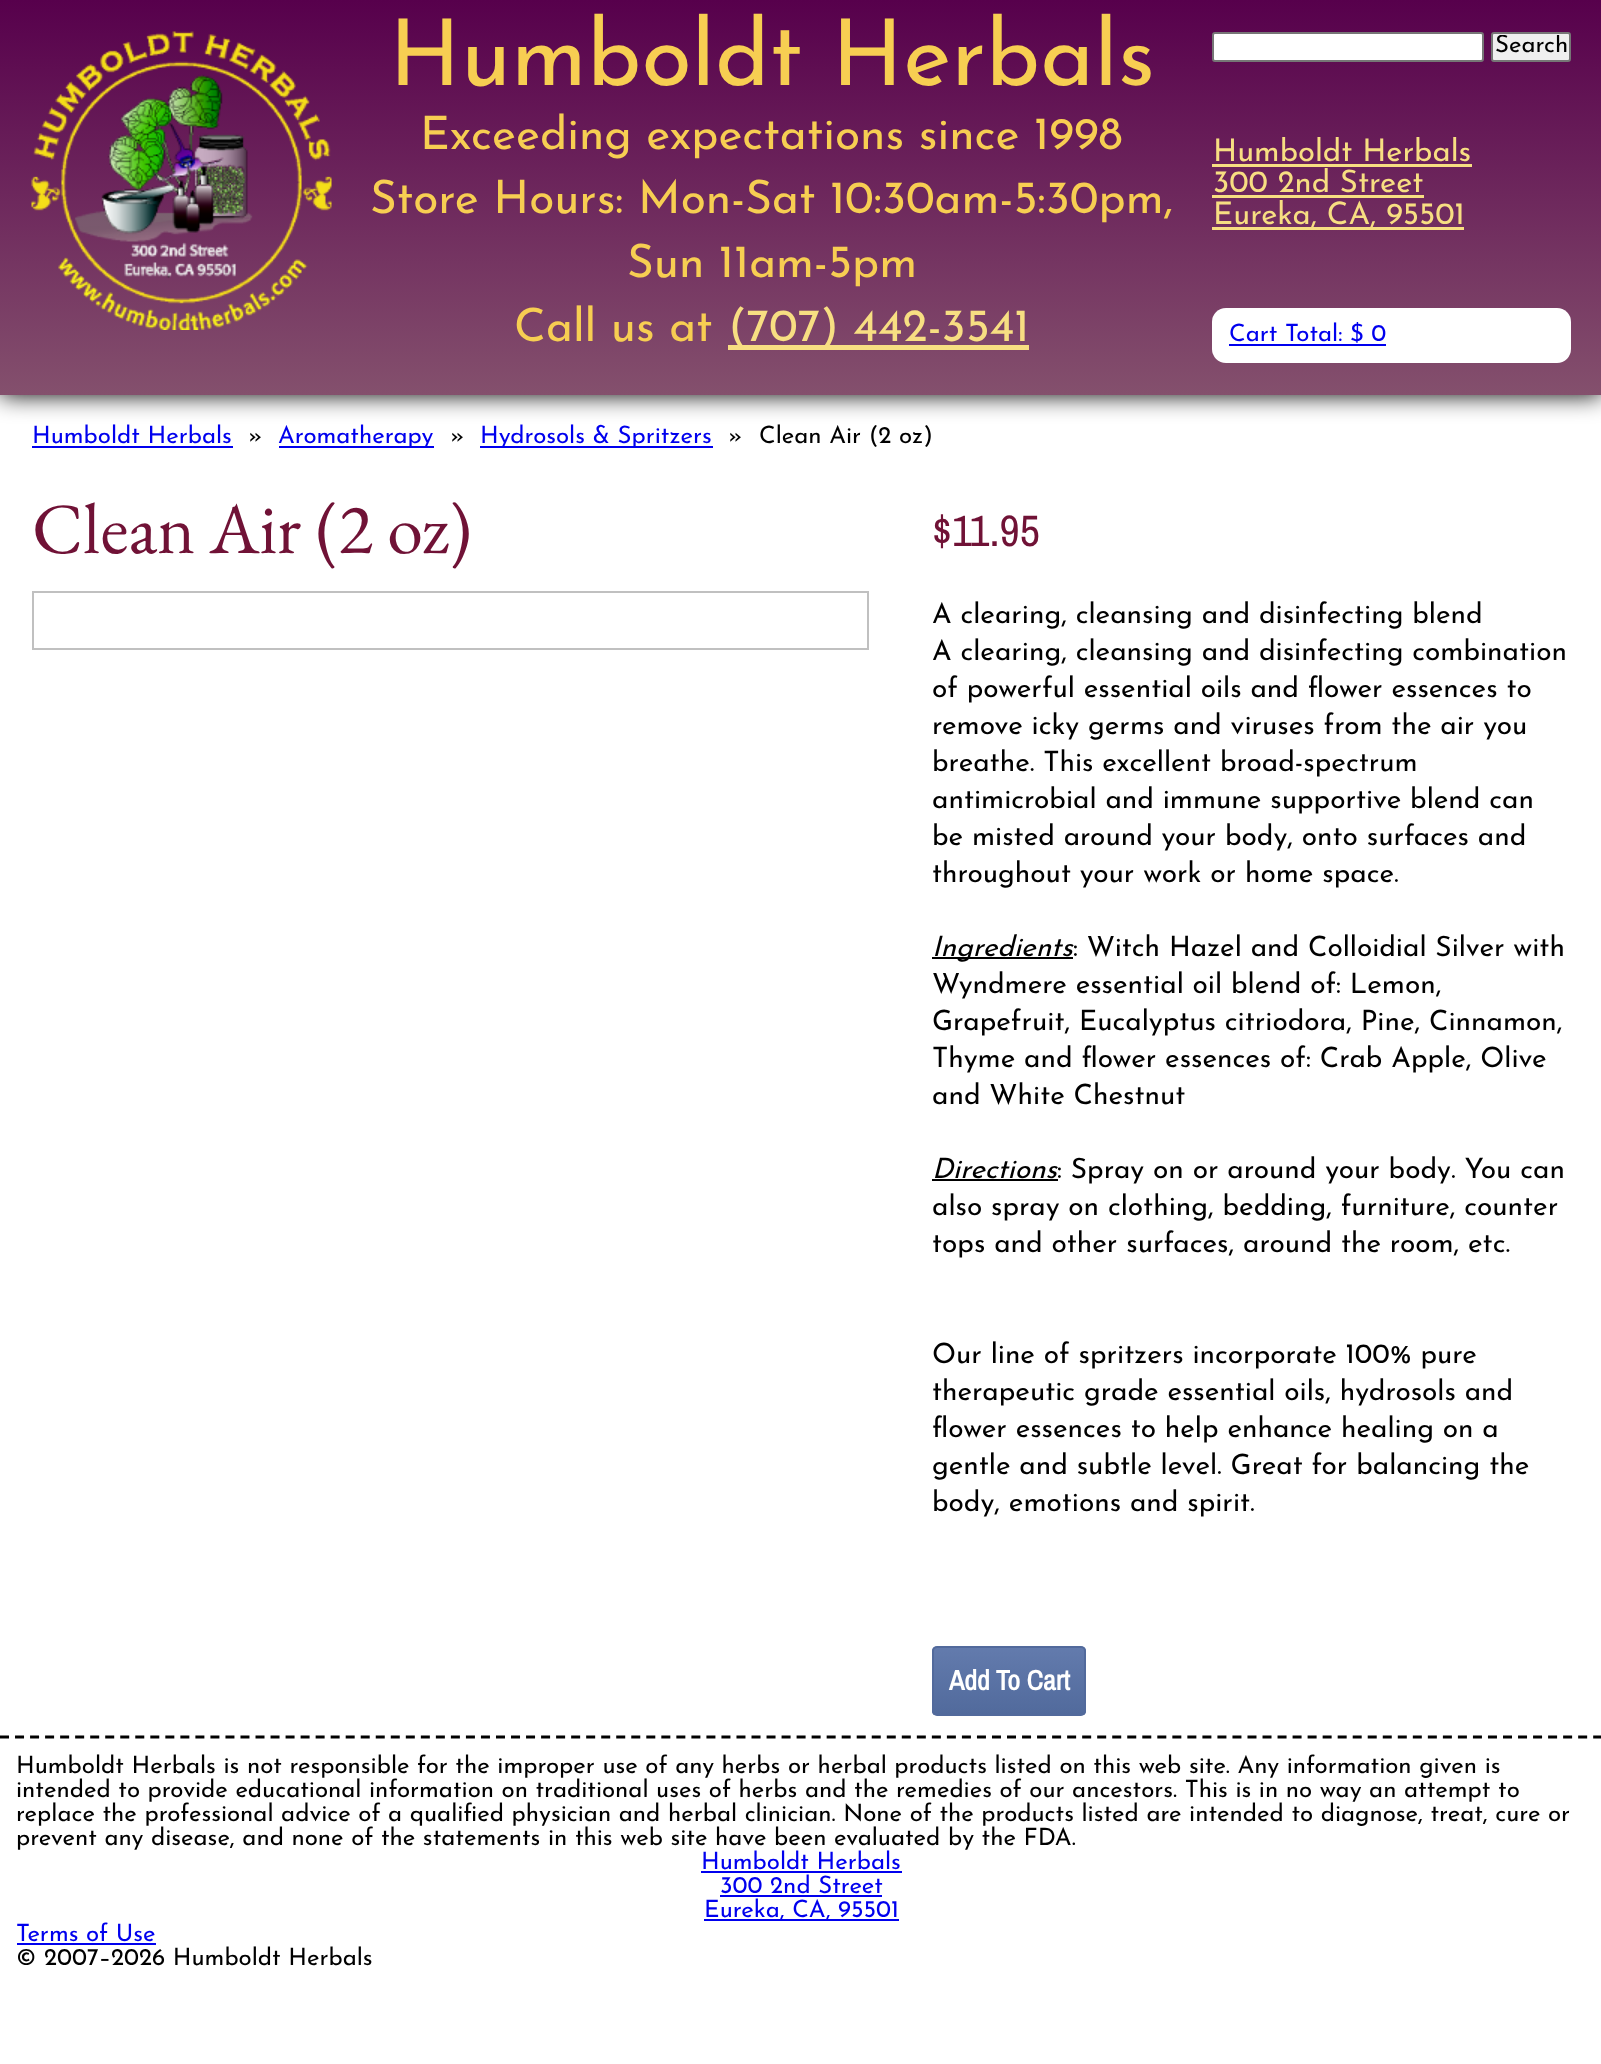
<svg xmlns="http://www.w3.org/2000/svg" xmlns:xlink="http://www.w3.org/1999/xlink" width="1601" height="2064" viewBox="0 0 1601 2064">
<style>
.cls-1{font:100 92px Josefin Sans;fill:#f7ce52}
.cls-2{font:100 46px Josefin Sans;fill:#f7ce52}
.cls-3{font:100 46px Josefin Sans;fill:#f7de82}
.cls-4{font:100 24px Josefin Sans;fill:#000000}
.cls-5{font:100 31px Josefin Sans;fill:#f7de82}
.cls-6{font:100 24px Josefin Sans;fill:#0000ee}
.cls-7{font:72px EB Garamond;fill:#701236}
.cls-8{font:44px Archivo Narrow;fill:#701236}
.cls-9{font:100 28px Josefin Sans;fill:#000000}
.cls-10{font:italic 100 28px Josefin Sans;fill:#000000}
.cls-11{font:bold 28px Archivo Narrow;fill:#ffffff}
</style>
<defs>
<linearGradient id="g1" gradientUnits="userSpaceOnUse" x1="801" y1="0" x2="801" y2="395"><stop offset="0" stop-color="#57004c"/><stop offset="1" stop-color="#84506d"/></linearGradient>
<clipPath id="clip1"><rect x="932" y="1646" width="154" height="70" rx="5"/></clipPath>
<linearGradient id="g2" gradientUnits="userSpaceOnUse" x1="1009" y1="1647" x2="1009" y2="1715"><stop offset="0" stop-color="#637bad"/><stop offset="1" stop-color="#516a9c"/></linearGradient>
<clipPath id="clip2"><rect x="1494" y="35" width="74" height="24"/></clipPath>
</defs>
<rect width="100%" height="100%" fill="#ffffff"/>
<rect fill="#000000" filter="blur(12px)" x="0" y="0" width="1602" height="395"/>
<rect fill="url(#g1)" x="0" y="0" width="1601" height="395"/>
<image xlink:href="image0.png" x="31" y="31" width="301" height="299"/>
<rect fill="#f7de82" x="728" y="345" width="301" height="5"/>
<rect fill="#ffffff" stroke="#767676" stroke-width="2" x="1213" y="33" width="270" height="28" rx="2"/>
<rect fill="#efefef" stroke="#767676" stroke-width="2" x="1492" y="33" width="78" height="28" rx="2"/>
<rect fill="#f7de82" x="1212" y="164" width="260" height="3"/>
<rect fill="#f7de82" x="1212" y="195" width="212" height="3"/>
<rect fill="#f7de82" x="1212" y="227" width="252" height="3"/>
<rect fill="#ffffff" x="1212" y="308" width="359" height="55" rx="14"/>
<rect fill="#0000ee" x="1229" y="344" width="157" height="2"/>
<rect fill="#0000ee" x="32" y="446" width="201" height="2"/>
<rect fill="#0000ee" x="279" y="446" width="155" height="2"/>
<rect fill="#0000ee" x="480" y="446" width="233" height="2"/>
<rect fill="none" stroke="#c0c0c0" stroke-width="2" x="33" y="592" width="835" height="57"/>
<rect fill="#000000" x="932" y="957" width="141" height="2"/>
<rect fill="#000000" x="932" y="1179" width="126" height="2"/>
<g clip-path="url(#clip1)">
<rect fill="url(#g2)" x="932" y="1647" width="154" height="68"/>
</g>
<rect fill="none" stroke="#526a9c" stroke-width="2" x="933" y="1647" width="152" height="68" rx="4"/>
<path fill="none" stroke="#000000" stroke-width="3" stroke-dasharray="9 6.03" d="M0 1737H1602"/>
<rect fill="#0000ee" x="701" y="1871" width="201" height="2"/>
<rect fill="#0000ee" x="720" y="1895" width="162" height="2"/>
<rect fill="#0000ee" x="704" y="1919" width="195" height="2"/>
<rect fill="#0000ee" x="17" y="1943" width="139" height="2"/>
<text class="cls-1" x="389" y="85">Humboldt Herbals</text>
<text class="cls-2" x="420" y="149">Exceeding expectations since 1998</text>
<text class="cls-2" x="370" y="213">Store Hours: Mon-Sat 10:30am-5:30pm,</text>
<text class="cls-2" x="627" y="277">Sun 11am-5pm</text>
<text class="cls-2" x="514" y="341">Call us at</text>
<text class="cls-3" x="728" y="341">(707) 442-3541</text>
<g clip-path="url(#clip2)">
<text class="cls-4" x="1495" y="52">Search</text>
</g>
<text class="cls-5"><tspan x="1213" y="161">Humboldt Herbals</tspan><tspan x="1213" y="192">300 2nd Street</tspan><tspan x="1213" y="224">Eureka, CA, 95501</tspan></text>
<text class="cls-6" x="1229" y="341">Cart Total: $ 0</text>
<text class="cls-6" x="32" y="443">Humboldt Herbals</text>
<text class="cls-4" x="248" y="443">»</text>
<text class="cls-6" x="278" y="443">Aromatherapy</text>
<text class="cls-4" x="450" y="443">»</text>
<text class="cls-6" x="480" y="443">Hydrosols &amp; Spritzers</text>
<text class="cls-4" x="728" y="443">»</text>
<text class="cls-4" x="759" y="443">Clean Air (2 oz)</text>
<text class="cls-7" x="32" y="553">Clean Air (2 oz)</text>
<text class="cls-8" x="932" y="546">$11.95</text>
<text class="cls-9"><tspan x="932" y="623">A clearing, cleansing and disinfecting blend</tspan><tspan x="932" y="660">A clearing, cleansing and disinfecting combination</tspan><tspan x="932" y="697">of powerful essential oils and flower essences to</tspan><tspan x="932" y="734">remove icky germs and viruses from the air you</tspan><tspan x="932" y="771">breathe. This excellent broad-spectrum</tspan><tspan x="932" y="808">antimicrobial and immune supportive blend can</tspan><tspan x="932" y="845">be misted around your body, onto surfaces and</tspan><tspan x="932" y="882">throughout your work or home space.</tspan></text>
<text class="cls-10" x="932" y="956">Ingredients</text>
<text class="cls-9" x="1073" y="956">: Witch Hazel and Colloidial Silver with</text>
<text class="cls-9"><tspan x="932" y="993">Wyndmere essential oil blend of: Lemon,</tspan><tspan x="932" y="1030">Grapefruit, Eucalyptus citriodora, Pine, Cinnamon,</tspan><tspan x="932" y="1067">Thyme and flower essences of: Crab Apple, Olive</tspan><tspan x="932" y="1104">and White Chestnut</tspan></text>
<text class="cls-10" x="932" y="1178">Directions</text>
<text class="cls-9" x="1057" y="1178">: Spray on or around your body. You can</text>
<text class="cls-9"><tspan x="932" y="1215">also spray on clothing, bedding, furniture, counter</tspan><tspan x="932" y="1252">tops and other surfaces, around the room, etc.</tspan></text>
<text class="cls-9"><tspan x="932" y="1363">Our line of spritzers incorporate 100% pure</tspan><tspan x="932" y="1400">therapeutic grade essential oils, hydrosols and</tspan><tspan x="932" y="1437">flower essences to help enhance healing on a</tspan><tspan x="932" y="1474">gentle and subtle level. Great for balancing the</tspan><tspan x="932" y="1511">body, emotions and spirit.</tspan></text>
<text class="cls-11" x="949" y="1690">Add To Cart</text>
<text class="cls-4"><tspan x="16" y="1773">Humboldt Herbals is not responsible for the improper use of any herbs or herbal products listed on this web site. Any information given is</tspan><tspan x="16" y="1797">intended to provide educational information on traditional uses of herbs and the remedies of our ancestors. This is in no way an attempt to</tspan><tspan x="16" y="1821">replace the professional advice of a qualified physician and herbal clinician. None of the products listed are intended to diagnose, treat, cure or</tspan><tspan x="16" y="1845">prevent any disease, and none of the statements in this web site have been evaluated by the FDA.</tspan></text>
<text class="cls-6" x="701" y="1869">Humboldt Herbals</text>
<text class="cls-6" x="720" y="1893">300 2nd Street</text>
<text class="cls-6" x="704" y="1917">Eureka, CA, 95501</text>
<text class="cls-6" x="16" y="1941">Terms of Use</text>
<text class="cls-4" x="16" y="1965">© 2007–2026 Humboldt Herbals</text>
</svg>
